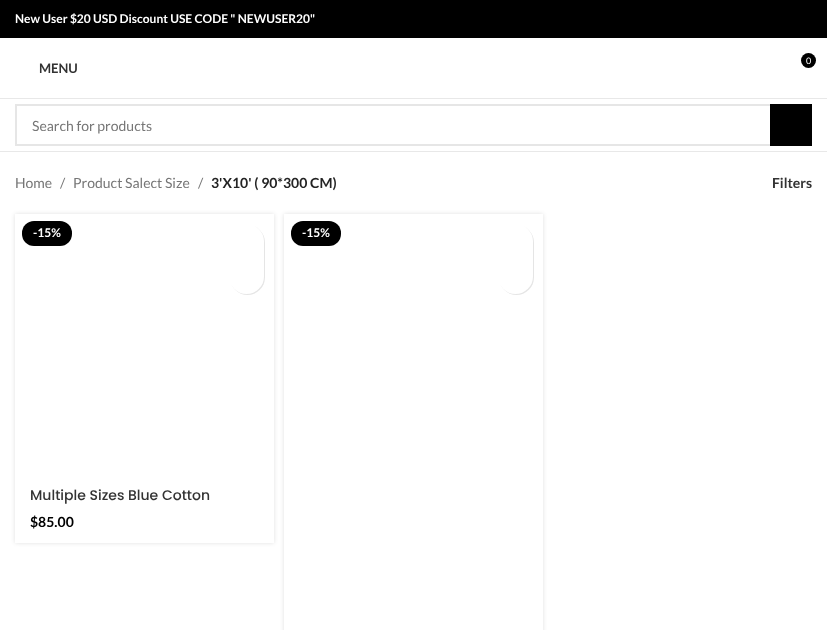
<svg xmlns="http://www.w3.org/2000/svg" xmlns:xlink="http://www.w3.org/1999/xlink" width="827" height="630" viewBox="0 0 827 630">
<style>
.cls-1{font:bold 12px Lato;fill:#ffffff}
.cls-2{font:9px Lato;fill:#ffffff}
.cls-3{font:bold 13px Lato;fill:#333333}
.cls-4{font:14px Lato;fill:#767676}
.cls-5{font:bold 14px Lato;fill:#242424}
.cls-6{font:bold 14px Lato;fill:#333333}
.cls-7{font:500 14px Poppins;fill:#333333}
.cls-8{font:bold 14px Lato;fill:#000000}
</style>
<defs>
<clipPath id="clip1"><path d="M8 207H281V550H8ZM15 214H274V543H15Z" clip-rule="evenodd"/></clipPath>
<clipPath id="clip2"><path d="M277 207H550V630H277ZM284 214H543V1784H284Z" clip-rule="evenodd"/></clipPath>
</defs>
<rect width="100%" height="100%" fill="#ffffff"/>
<rect fill="#000000" x="0" y="0" width="827" height="38"/>
<rect fill="#e8e8e8" x="0" y="98" width="827" height="1"/>
<circle fill="#000000" cx="808.5" cy="60.5" r="7.5"/>
<rect fill="#e8e8e8" x="0" y="151" width="827" height="1"/>
<rect fill="none" stroke="#e6e6e6" stroke-width="2" x="16" y="105" width="795" height="40"/>
<rect fill="#000000" x="770" y="104" width="42" height="42"/>
<g clip-path="url(#clip1)">
<rect fill="#000000" fill-opacity="0.12" filter="blur(2px)" x="15" y="214" width="259" height="329"/>
</g>
<rect fill="#000000" x="22" y="221" width="50" height="25" rx="12"/>
<rect fill="#000000" fill-opacity="0.1" filter="blur(0.5px)" x="230" y="225" width="35" height="70" rx="17.5"/>
<rect fill="#ffffff" x="229" y="224" width="35" height="70" rx="17.5"/>
<g clip-path="url(#clip2)">
<rect fill="#000000" fill-opacity="0.12" filter="blur(2px)" x="284" y="214" width="259" height="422"/>
</g>
<rect fill="#000000" x="291" y="221" width="50" height="25" rx="12"/>
<rect fill="#000000" fill-opacity="0.1" filter="blur(0.5px)" x="499" y="225" width="35" height="70" rx="17.5"/>
<rect fill="#ffffff" x="498" y="224" width="35" height="70" rx="17.5"/>
<text class="cls-1" x="15" y="23">New User $20 USD Discount USE CODE " NEWUSER20"</text>
<text class="cls-2" x="806" y="64">0</text>
<text class="cls-3" x="39" y="73">MENU</text>
<text class="cls-4" x="32" y="131">Search for products</text>
<text class="cls-4" x="15" y="188">Home</text>
<text class="cls-4" x="60" y="188">/</text>
<text class="cls-4" x="73" y="188">Product Salect Size</text>
<text class="cls-4" x="198" y="188">/</text>
<text class="cls-5" x="211" y="188">3'X10' ( 90*300 CM)</text>
<text class="cls-6" x="772" y="188">Filters</text>
<text class="cls-1" x="33" y="237">-15%</text>
<text class="cls-7" x="30" y="500">Multiple Sizes Blue Cotton</text>
<text class="cls-8" x="30" y="527">$85.00</text>
<text class="cls-1" x="302" y="237">-15%</text>
</svg>
